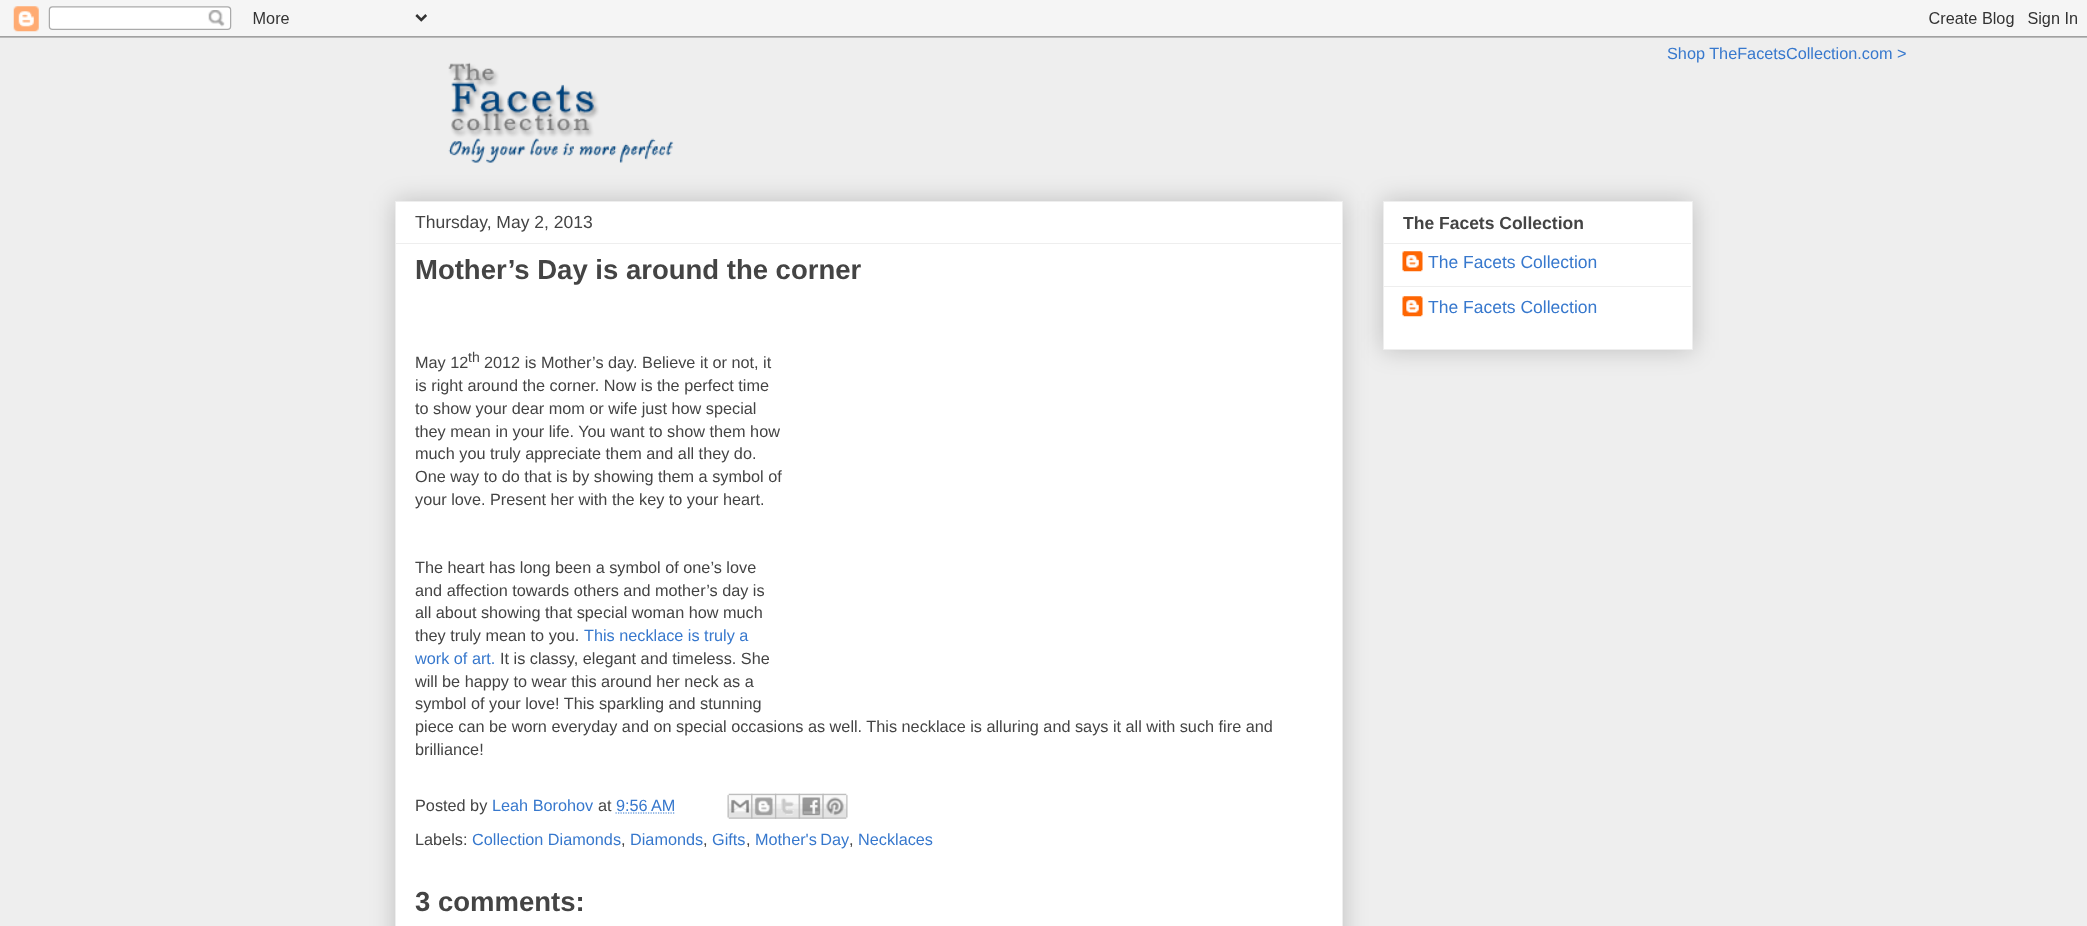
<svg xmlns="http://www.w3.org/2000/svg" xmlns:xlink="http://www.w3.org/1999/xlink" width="2087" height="926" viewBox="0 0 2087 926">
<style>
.cls-1{font:16.25px Liberation Sans;fill:#3778cd}
.cls-2{font:17.5px Liberation Sans;fill:#444444}
.cls-3{font:bold 27.5px Liberation Sans;fill:#444444}
.cls-4{font:16.25px Liberation Sans;fill:#444444}
.cls-5{font:14px Liberation Sans;fill:#444444}
.cls-6{font:bold 17.5px Liberation Sans;fill:#444444}
.cls-7{font:17.5px Liberation Sans;fill:#3778cd}
</style>
<rect width="100%" height="100%" fill="#eeeeee"/>
<image xlink:href="image0.png" x="0" y="0" width="2087" height="38"/>
<image xlink:href="image1.png" x="448" y="62" width="226" height="101"/>
<rect fill="#000000" fill-opacity="0.2" filter="blur(12.5px)" x="395" y="201" width="948" height="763"/>
<rect fill="#ffffff" stroke="#eeeeee" x="395.5" y="201.5" width="947" height="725"/>
<rect fill="#eeeeee" x="396" y="243" width="945" height="1"/>
<path fill="none" stroke="#3778cd" stroke-width="1.2" stroke-dasharray="1.25 1.25" d="M615.5 813H675"/>
<image xlink:href="image2.png" x="727" y="793" width="26" height="26"/>
<image xlink:href="image3.png" x="751" y="793" width="26" height="26"/>
<image xlink:href="image4.png" x="775" y="793" width="25" height="26"/>
<image xlink:href="image5.png" x="798" y="793" width="26" height="26"/>
<image xlink:href="image6.png" x="822" y="793" width="26" height="26"/>
<rect fill="#000000" fill-opacity="0.2" filter="blur(12.5px)" x="1383" y="201" width="310" height="149"/>
<rect fill="#ffffff" stroke="#eeeeee" x="1383.5" y="201.5" width="309" height="148"/>
<rect fill="#eeeeee" x="1384" y="243" width="307" height="1"/>
<image xlink:href="image7.png" x="1402" y="251" width="21" height="21"/>
<rect fill="#eeeeee" x="1384" y="286" width="307" height="1"/>
<image xlink:href="image7.png" x="1402" y="296" width="21" height="21"/>
<text class="cls-1" x="1667" y="59">Shop TheFacetsCollection.com &gt;</text>
<text class="cls-2" x="415" y="228">Thursday, May 2, 2013</text>
<text class="cls-3" x="415" y="279">Mother’s Day is around the corner</text>
<text class="cls-4" x="415" y="368">May 12</text>
<text class="cls-5" x="468" y="362">th</text>
<text class="cls-4" x="484" y="368">2012 is Mother’s day. Believe it or not, it</text>
<text class="cls-4"><tspan x="415" y="391">is right around the corner. Now is the perfect time</tspan><tspan x="415" y="414">to show your dear mom or wife just how special</tspan><tspan x="415" y="437">they mean in your life. You want to show them how</tspan><tspan x="415" y="459">much you truly appreciate them and all they do.</tspan><tspan x="415" y="482">One way to do that is by showing them a symbol of</tspan><tspan x="415" y="505">your love. Present her with the key to your heart.</tspan></text>
<text class="cls-4"><tspan x="415" y="573">The heart has long been a symbol of one’s love</tspan><tspan x="415" y="596">and affection towards others and mother’s day is</tspan><tspan x="415" y="618">all about showing that special woman how much</tspan><tspan x="415" y="641">they truly mean to you.</tspan></text>
<text class="cls-1" x="584" y="641">This necklace is truly a</text>
<text class="cls-1" x="415" y="664">work of art.</text>
<text class="cls-4" x="500" y="664">It is classy, elegant and timeless. She</text>
<text class="cls-4"><tspan x="415" y="687">will be happy to wear this around her neck as a</tspan><tspan x="415" y="709">symbol of your love! This sparkling and stunning</tspan><tspan x="415" y="732">piece can be worn everyday and on special occasions as well. This necklace is alluring and says it all with such fire and</tspan><tspan x="415" y="755">brilliance!</tspan></text>
<text class="cls-4" x="415" y="811">Posted by</text>
<text class="cls-1" x="492" y="811">Leah Borohov</text>
<text class="cls-4" x="598" y="811">at</text>
<text class="cls-1" x="616" y="811">9:56 AM</text>
<text class="cls-4" x="415" y="845">Labels:</text>
<text class="cls-1" x="472" y="845">Collection Diamonds</text>
<text class="cls-4" x="621" y="845">,</text>
<text class="cls-1" x="630" y="845">Diamonds</text>
<text class="cls-4" x="703" y="845">,</text>
<text class="cls-1" x="712" y="845">Gifts</text>
<text class="cls-4" x="746" y="845">,</text>
<text class="cls-1" x="755" y="845" word-spacing="-1">Mother's Day</text>
<text class="cls-4" x="849" y="845">,</text>
<text class="cls-1" x="858" y="845">Necklaces</text>
<text class="cls-3" x="415" y="911">3 comments:</text>
<text class="cls-6" x="1403" y="229">The Facets Collection</text>
<text class="cls-7" x="1428" y="268">The Facets Collection</text>
<text class="cls-7" x="1428" y="313">The Facets Collection</text>
</svg>
